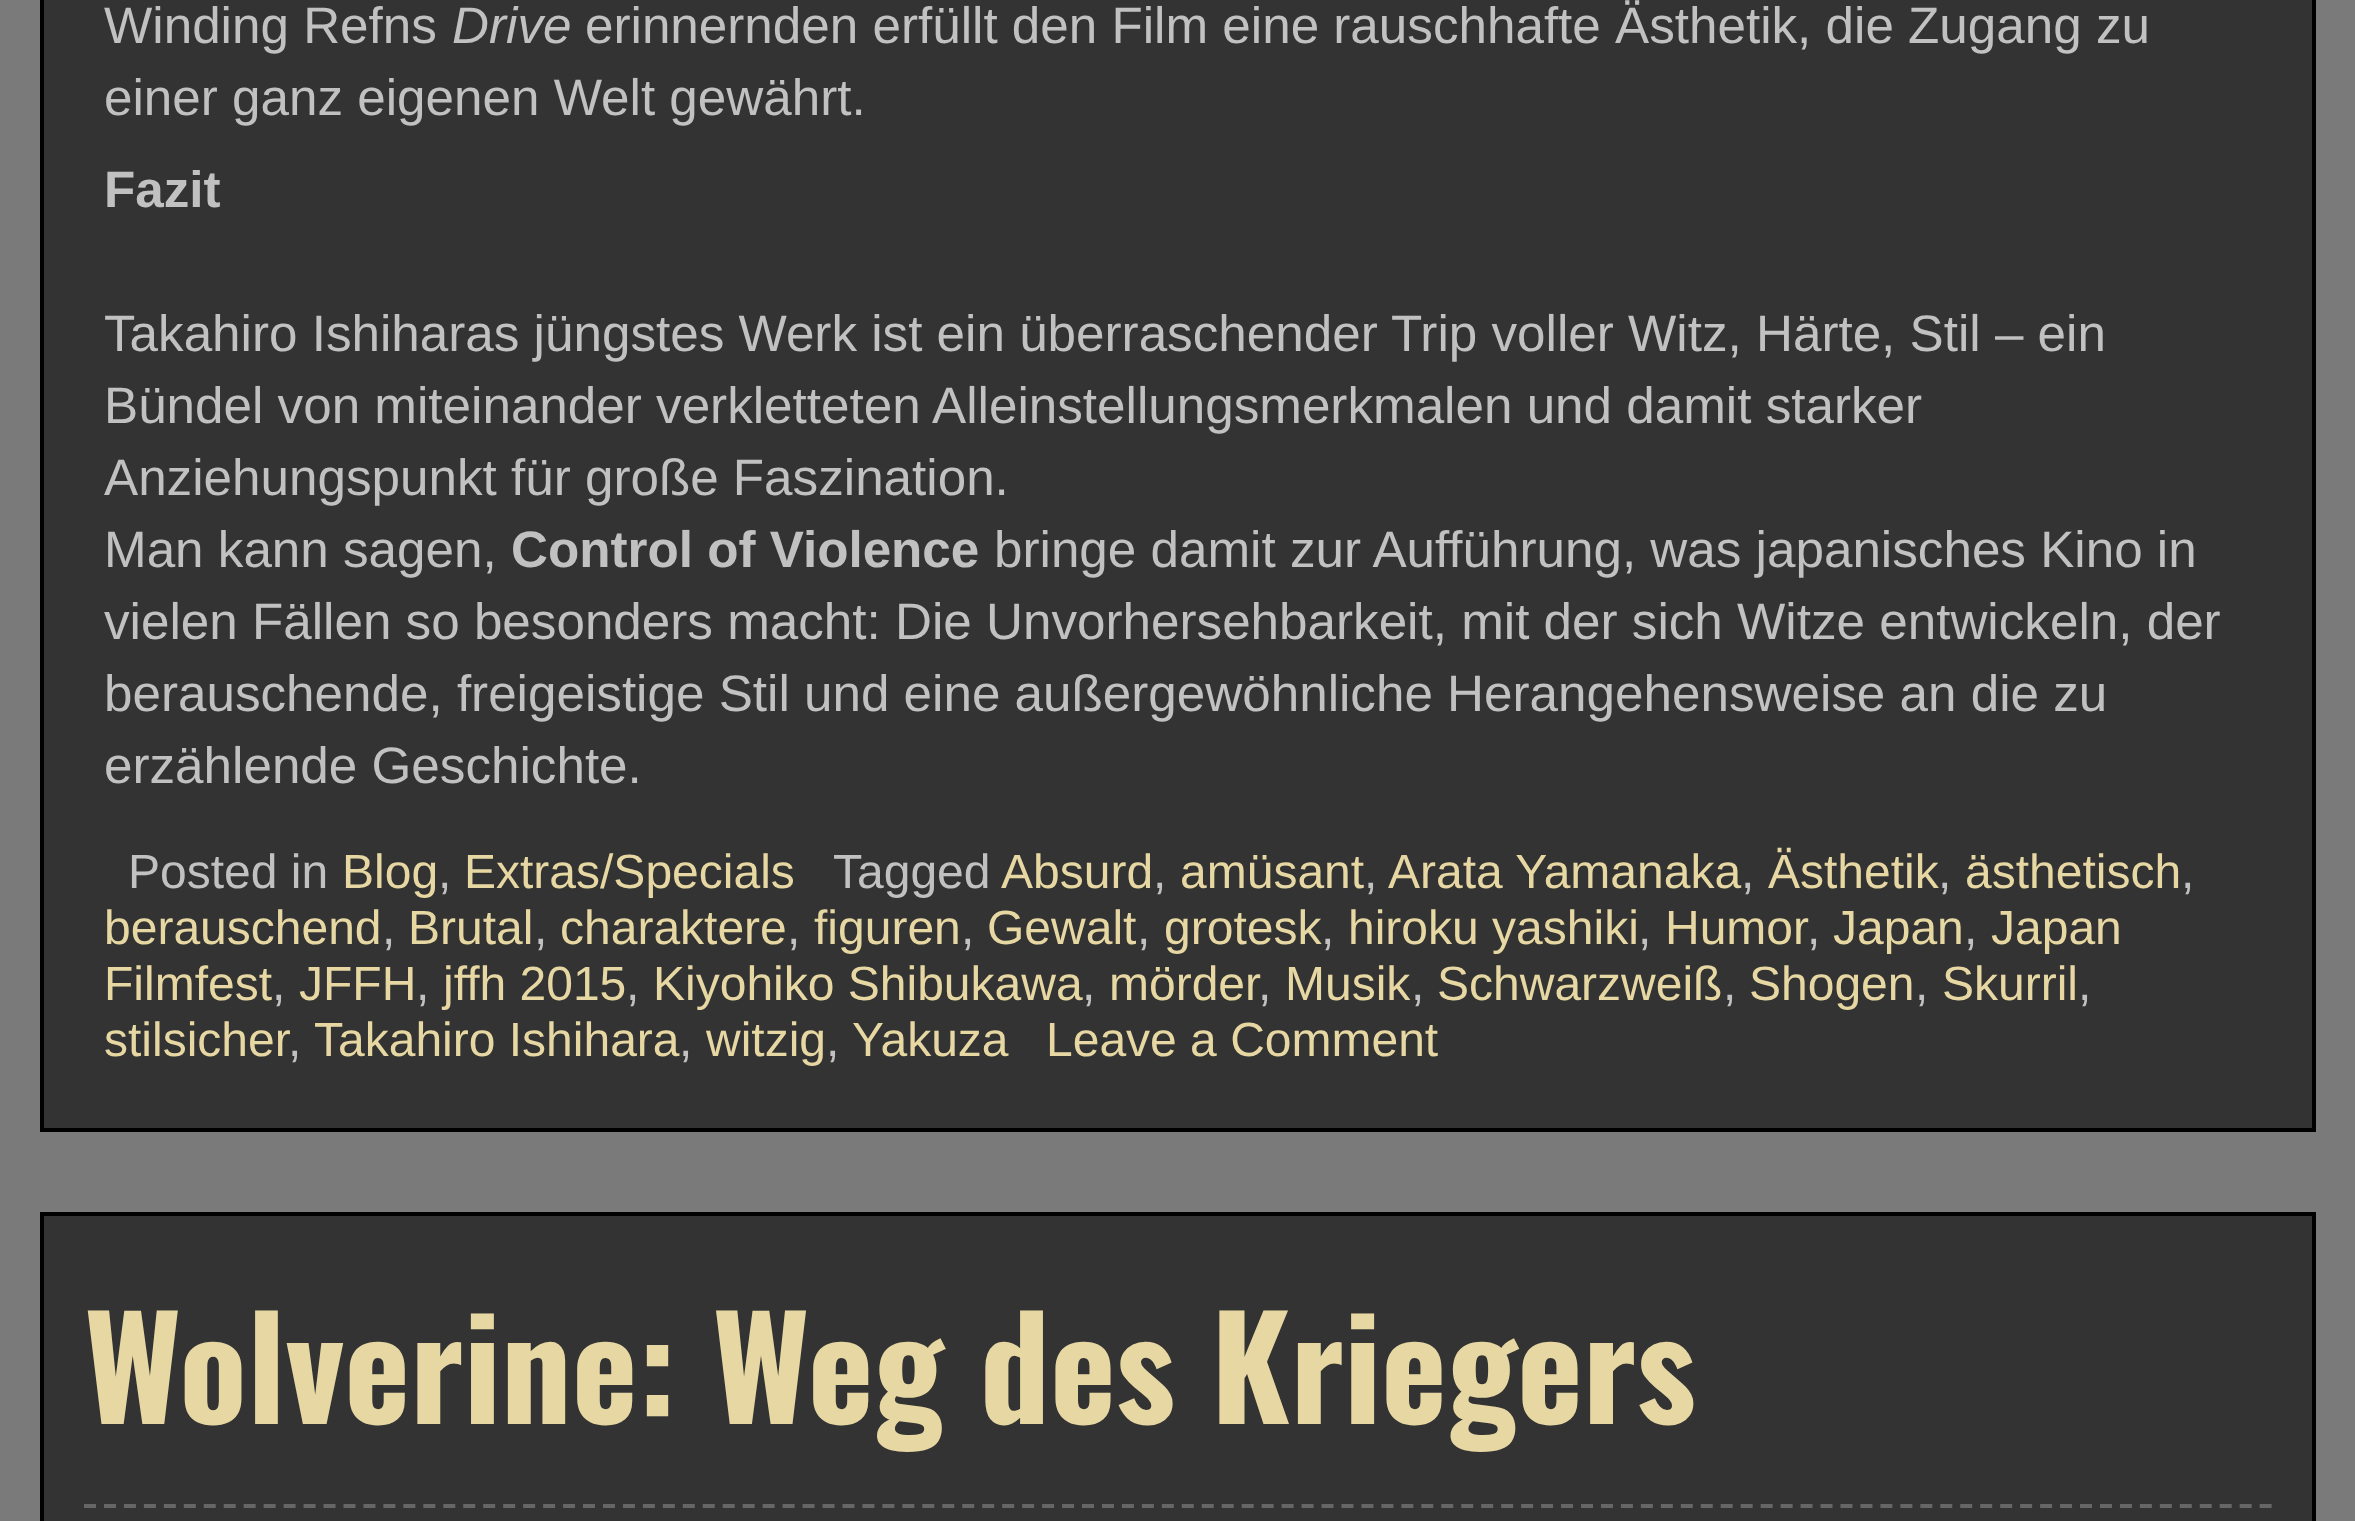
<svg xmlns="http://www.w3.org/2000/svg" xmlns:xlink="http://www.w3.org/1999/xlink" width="2355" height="1521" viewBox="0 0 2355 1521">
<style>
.cls-1{font:51.2px Liberation Sans;fill:#c1c1c1}
.cls-2{font:italic 51.2px Liberation Sans;fill:#c1c1c1}
.cls-3{font:bold 51.2px Liberation Sans;fill:#c1c1c1}
.cls-4{font:48px Liberation Sans;fill:#c1c1c1}
.cls-5{font:48px Liberation Sans;fill:#e7d8a3}
.cls-6{font:bold 140px Oswald;fill:#e7d8a3}
</style>
<rect width="100%" height="100%" fill="#7a7a7a"/>
<rect fill="#333333" stroke="#000000" stroke-width="4" x="42" y="-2" width="2272" height="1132"/>
<rect fill="#333333" stroke="#000000" stroke-width="4" x="42" y="1214" width="2272" height="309"/>
<path fill="none" stroke="#666666" stroke-width="4" stroke-dasharray="12 7.96" d="M84 1506H2272"/>
<text class="cls-1" x="104" y="43">Winding Refns</text>
<text class="cls-2" x="452" y="43">Drive</text>
<text class="cls-1" x="585" y="43">erinnernden erfüllt den Film eine rauschhafte Ästhetik, die Zugang zu</text>
<text class="cls-1" x="104" y="115">einer ganz eigenen Welt gewährt.</text>
<text class="cls-3" x="104" y="207">Fazit</text>
<text class="cls-1"><tspan x="104" y="351">Takahiro Ishiharas jüngstes Werk ist ein überraschender Trip voller Witz, Härte, Stil – ein</tspan><tspan x="104" y="423">Bündel von miteinander verkletteten Alleinstellungsmerkmalen und damit starker</tspan><tspan x="104" y="495">Anziehungspunkt für große Faszination.</tspan><tspan x="104" y="567">Man kann sagen,</tspan></text>
<text class="cls-3" x="511" y="567">Control of Violence</text>
<text class="cls-1" x="994" y="567">bringe damit zur Aufführung, was japanisches Kino in</text>
<text class="cls-1"><tspan x="104" y="639">vielen Fällen so besonders macht: Die Unvorhersehbarkeit, mit der sich Witze entwickeln, der</tspan><tspan x="104" y="711">berauschende, freigeistige Stil und eine außergewöhnliche Herangehensweise an die zu</tspan><tspan x="104" y="783">erzählende Geschichte.</tspan></text>
<text class="cls-4" x="128" y="888">Posted in</text>
<text class="cls-5" x="342" y="888">Blog</text>
<text class="cls-4" x="438" y="888">,</text>
<text class="cls-5" x="464" y="888">Extras/Specials</text>
<text class="cls-4" x="833" y="888">Tagged</text>
<text class="cls-5" x="1001" y="888">Absurd</text>
<text class="cls-4" x="1153" y="888">,</text>
<text class="cls-5" x="1180" y="888">amüsant</text>
<text class="cls-4" x="1364" y="888">,</text>
<text class="cls-5" x="1388" y="888">Arata Yamanaka</text>
<text class="cls-4" x="1741" y="888">,</text>
<text class="cls-5" x="1768" y="888">Ästhetik</text>
<text class="cls-4" x="1938" y="888">,</text>
<text class="cls-5" x="1965" y="888">ästhetisch</text>
<text class="cls-4" x="2181" y="888">,</text>
<text class="cls-5" x="104" y="944">berauschend</text>
<text class="cls-4" x="382" y="944">,</text>
<text class="cls-5" x="408" y="944">Brutal</text>
<text class="cls-4" x="534" y="944">,</text>
<text class="cls-5" x="560" y="944">charaktere</text>
<text class="cls-4" x="787" y="944">,</text>
<text class="cls-5" x="814" y="944">figuren</text>
<text class="cls-4" x="961" y="944">,</text>
<text class="cls-5" x="987" y="944">Gewalt</text>
<text class="cls-4" x="1137" y="944">,</text>
<text class="cls-5" x="1164" y="944">grotesk</text>
<text class="cls-4" x="1321" y="944">,</text>
<text class="cls-5" x="1348" y="944">hiroku yashiki</text>
<text class="cls-4" x="1638" y="944">,</text>
<text class="cls-5" x="1665" y="944">Humor</text>
<text class="cls-4" x="1807" y="944">,</text>
<text class="cls-5" x="1833" y="944">Japan</text>
<text class="cls-4" x="1964" y="944">,</text>
<text class="cls-5" x="1991" y="944">Japan</text>
<text class="cls-5" x="104" y="1000">Filmfest</text>
<text class="cls-4" x="272" y="1000">,</text>
<text class="cls-5" x="299" y="1000">JFFH</text>
<text class="cls-4" x="416" y="1000">,</text>
<text class="cls-5" x="443" y="1000">jffh 2015</text>
<text class="cls-4" x="626" y="1000">,</text>
<text class="cls-5" x="653" y="1000">Kiyohiko Shibukawa</text>
<text class="cls-4" x="1082" y="1000">,</text>
<text class="cls-5" x="1109" y="1000">mörder</text>
<text class="cls-4" x="1258" y="1000">,</text>
<text class="cls-5" x="1285" y="1000">Musik</text>
<text class="cls-4" x="1411" y="1000">,</text>
<text class="cls-5" x="1437" y="1000">Schwarzweiß</text>
<text class="cls-4" x="1723" y="1000">,</text>
<text class="cls-5" x="1749" y="1000">Shogen</text>
<text class="cls-4" x="1915" y="1000">,</text>
<text class="cls-5" x="1942" y="1000">Skurril</text>
<text class="cls-4" x="2078" y="1000">,</text>
<text class="cls-5" x="104" y="1056">stilsicher</text>
<text class="cls-4" x="288" y="1056">,</text>
<text class="cls-5" x="314" y="1056">Takahiro Ishihara</text>
<text class="cls-4" x="679" y="1056">,</text>
<text class="cls-5" x="706" y="1056">witzig</text>
<text class="cls-4" x="826" y="1056">,</text>
<text class="cls-5" x="852" y="1056">Yakuza</text>
<text class="cls-5" x="1046" y="1056">Leave a Comment</text>
<text class="cls-6" x="84" y="1424">Wolverine: Weg des Kriegers</text>
</svg>
